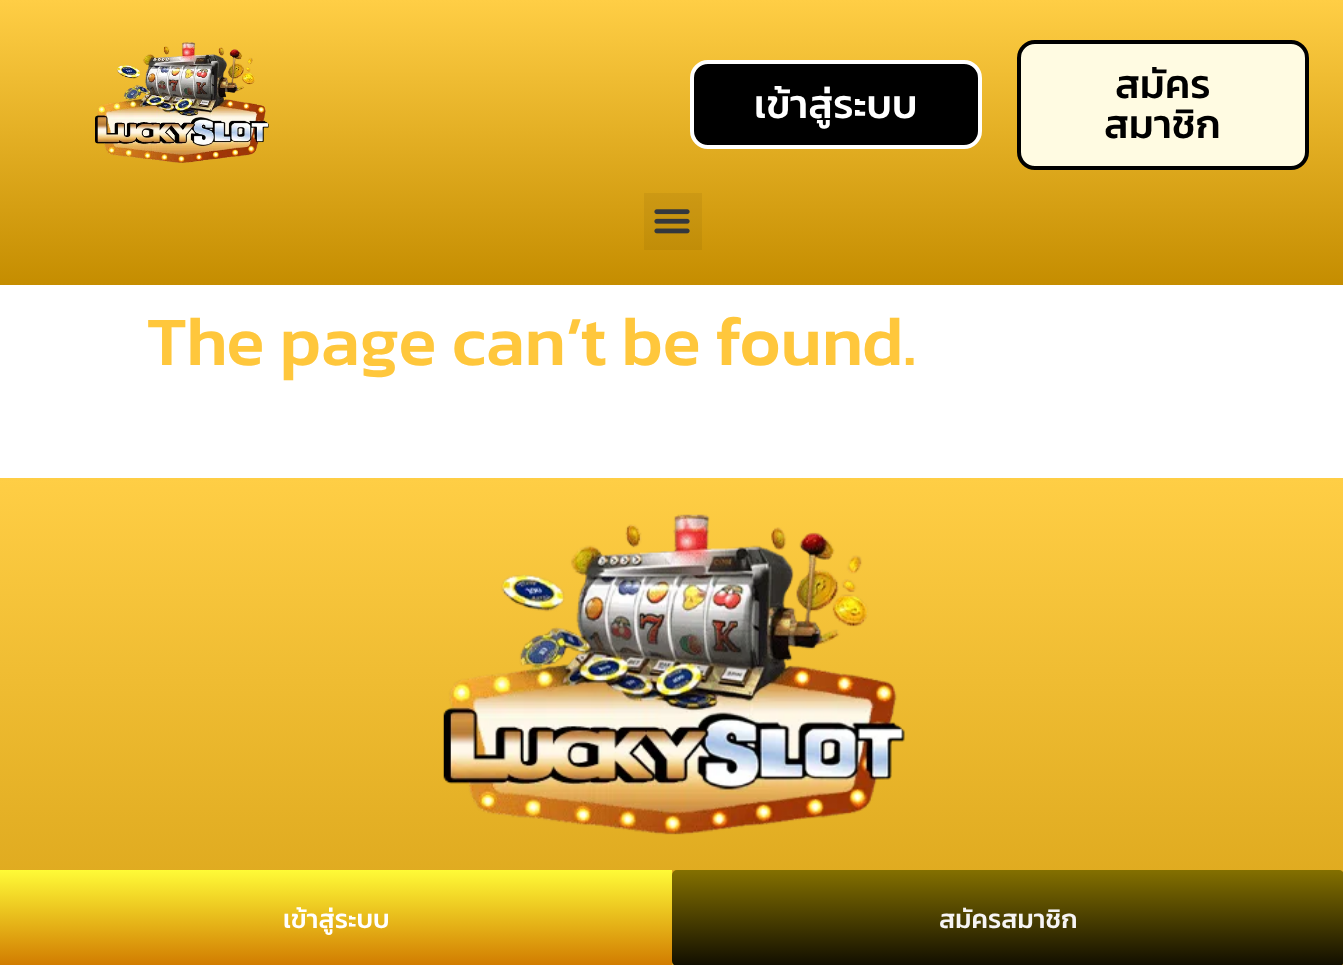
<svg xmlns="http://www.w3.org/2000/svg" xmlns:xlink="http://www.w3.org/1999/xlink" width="1343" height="965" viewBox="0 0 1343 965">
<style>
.cls-1{font:500 40.25px Kanit;fill:#ffffff}
.cls-2{font:500 40.25px Kanit;fill:#000000}
.cls-3{font:500 70px Kanit;fill:#ffc73c}
.cls-4{font:500 26.25px Kanit;fill:#ffffff}
.cls-5{font:500 26.25px Kanit;fill:#f6f4f4}
</style>
<defs>
<linearGradient id="g1" gradientUnits="userSpaceOnUse" x1="672" y1="0" x2="672" y2="285"><stop offset="0" stop-color="#ffce45"/><stop offset="1" stop-color="#c58d00"/></linearGradient>
<linearGradient id="g2" gradientUnits="userSpaceOnUse" x1="672" y1="478" x2="672" y2="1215"><stop offset="0" stop-color="#ffce45"/><stop offset="1" stop-color="#c58d00"/></linearGradient>
<linearGradient id="g3" gradientUnits="userSpaceOnUse" x1="336" y1="870" x2="336" y2="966"><stop offset="0" stop-color="#fffb37"/><stop offset="1" stop-color="#d17b00"/></linearGradient>
<linearGradient id="g4" gradientUnits="userSpaceOnUse" x1="1008" y1="870" x2="1008" y2="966"><stop offset="0" stop-color="#847000"/><stop offset="1" stop-color="#110e00"/></linearGradient>
</defs>
<rect width="100%" height="100%" fill="#ffffff"/>
<rect fill="url(#g1)" x="0" y="0" width="1343" height="285"/>
<image xlink:href="image0.png" x="95" y="42" width="174" height="121"/>
<rect fill="#000000" stroke="#ffffff" stroke-width="4" x="692" y="62" width="288" height="85" rx="16"/>
<rect fill="#fffbe2" stroke="#000000" stroke-width="4" x="1019" y="42" width="288" height="126" rx="16"/>
<rect fill="#000000" fill-opacity="0.05" x="644" y="193" width="58" height="57"/>
<image xlink:href="image1.png" x="654" y="209" width="36" height="25"/>
<rect fill="url(#g2)" x="0" y="478" width="1343" height="487"/>
<image xlink:href="image2.png" x="443" y="514" width="462" height="321"/>
<rect fill="url(#g3)" x="0" y="870" width="672" height="95"/>
<rect fill="url(#g4)" x="672" y="870" width="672" height="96" rx="5"/>
<text class="cls-1" x="754" y="118">เข้าสู่ระบบ</text>
<text class="cls-2" x="1115" y="98">สมัคร</text>
<text class="cls-2" x="1104" y="138">สมาชิก</text>
<text class="cls-3" x="147" y="365">The page can’t be found.</text>
<text class="cls-4" x="283" y="928">เข้าสู่ระบบ</text>
<text class="cls-5" x="939" y="928">สมัครสมาชิก</text>
</svg>
